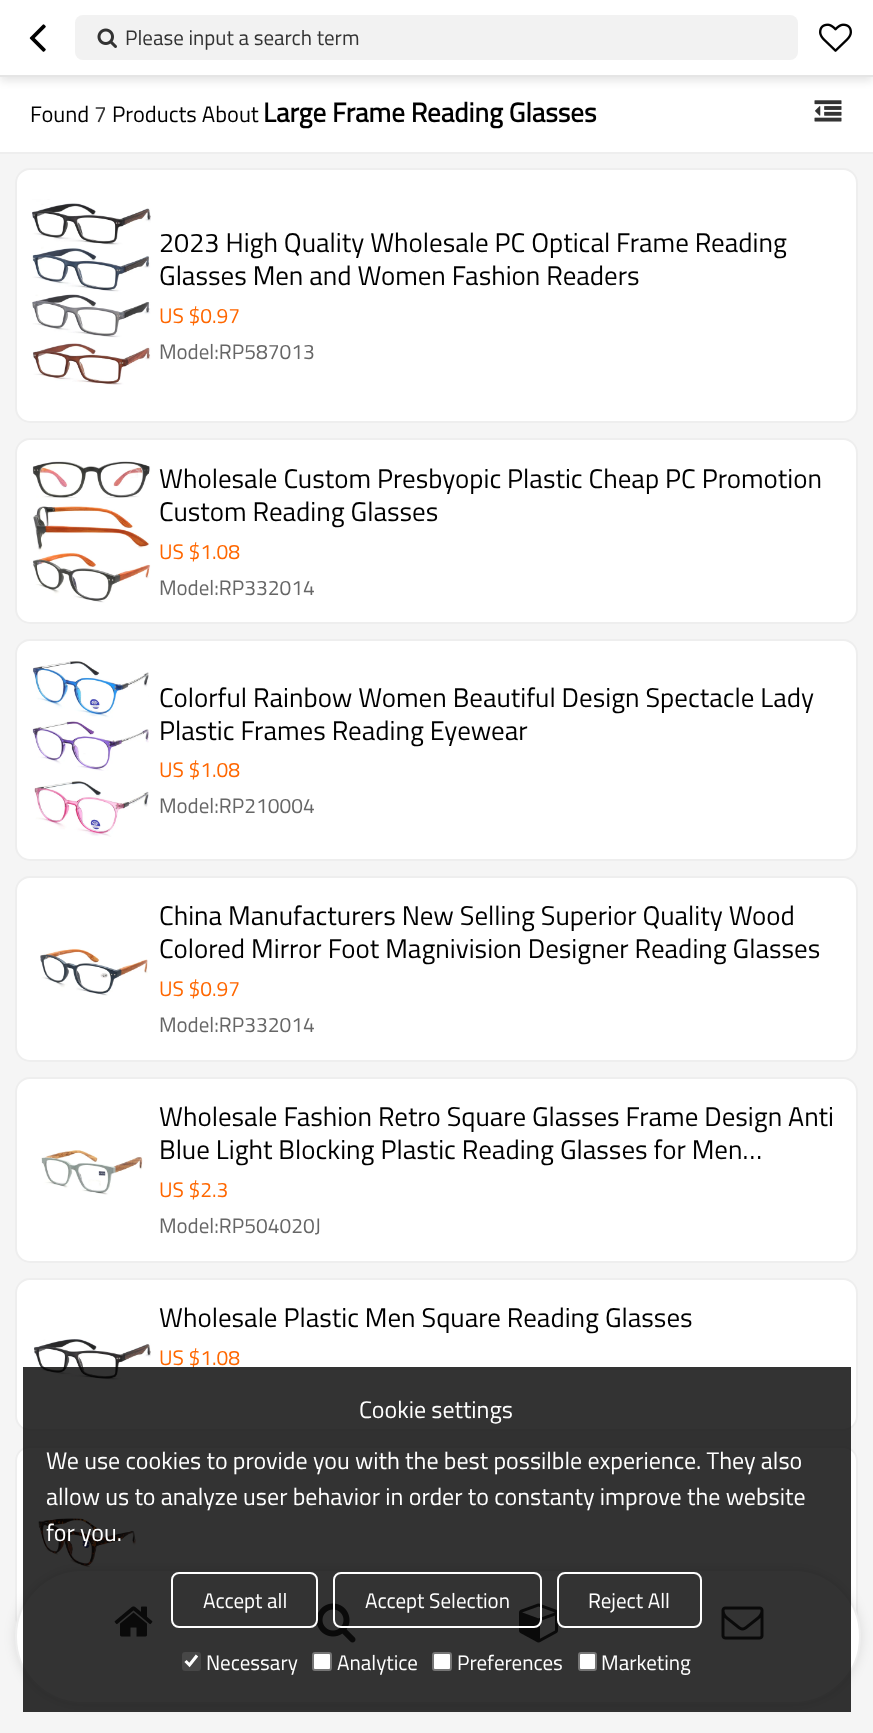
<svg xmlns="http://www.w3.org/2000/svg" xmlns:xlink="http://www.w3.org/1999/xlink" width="873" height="1733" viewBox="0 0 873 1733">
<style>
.cls-1{font:21px Titillium Web;fill:#333333}
.cls-2{font:22.5px Titillium Web;fill:#000000}
.cls-3{font:22.5px Titillium Web;fill:#333333}
.cls-4{font:bold 27px Titillium Web;fill:#000000}
.cls-5{font:27px Titillium Web;fill:#000000}
.cls-6{font:21px Titillium Web;fill:#ff6700}
.cls-7{font:21px Titillium Web;fill:#666666}
.cls-8{font:24px Titillium Web;fill:#ffffff}
.cls-9{font:21px Titillium Web;fill:#ffffff}
</style>
<rect width="100%" height="100%" fill="#f5f5f5"/>
<rect fill="#ffffff" x="0" y="77" width="873" height="75"/>
<rect fill="#000000" fill-opacity="0.1" filter="blur(4px)" x="0" y="5" width="873" height="76"/>
<rect fill="#ffffff" x="0" y="0" width="873" height="75"/>
<rect fill="#e5e5e5" x="0" y="75" width="873" height="2"/>
<image xlink:href="image0.png" x="29" y="24" width="17" height="28"/>
<rect fill="#f2f2f2" x="75" y="15" width="723" height="45" rx="8"/>
<image xlink:href="image1.png" x="97" y="28" width="20" height="20"/>
<image xlink:href="image2.png" x="819" y="23" width="33" height="29"/>
<rect fill="#eeeeee" x="0" y="152" width="873" height="2"/>
<image xlink:href="image3.png" x="814" y="100" width="28" height="22"/>
<rect fill="#ffffff" stroke="#eeeeee" stroke-width="2" x="16" y="169" width="841" height="253" rx="14"/>
<image xlink:href="image4.png" x="32" y="199" width="119" height="186"/>
<rect fill="#ffffff" stroke="#eeeeee" stroke-width="2" x="16" y="439" width="841" height="184" rx="14"/>
<image xlink:href="image5.png" x="32" y="461" width="119" height="142"/>
<rect fill="#ffffff" stroke="#eeeeee" stroke-width="2" x="16" y="640" width="841" height="220" rx="14"/>
<image xlink:href="image6.png" x="32" y="661" width="117" height="176"/>
<rect fill="#ffffff" stroke="#eeeeee" stroke-width="2" x="16" y="877" width="841" height="184" rx="14"/>
<image xlink:href="image7.png" x="40" y="948" width="108" height="48"/>
<rect fill="#ffffff" stroke="#eeeeee" stroke-width="2" x="16" y="1078" width="841" height="184" rx="14"/>
<image xlink:href="image8.png" x="41" y="1150" width="102" height="45"/>
<rect fill="#ffffff" stroke="#eeeeee" stroke-width="2" x="16" y="1279" width="841" height="151" rx="14"/>
<image xlink:href="image9.png" x="34" y="1339" width="117" height="41"/>
<rect fill="#ffffff" stroke="#eeeeee" stroke-width="2" x="16" y="1447" width="841" height="184" rx="14"/>
<image xlink:href="image10.png" x="38" y="1518" width="99" height="50"/>
<rect fill="#000000" fill-opacity="0.1" filter="blur(6px)" x="15" y="1569" width="846" height="135" rx="67.5"/>
<rect fill="#ffffff" stroke="#eeeeee" stroke-width="2" x="16" y="1570" width="844" height="133" rx="66.5"/>
<image xlink:href="image11.png" x="114" y="1606" width="39" height="31"/>
<image xlink:href="image12.png" x="316" y="1603" width="40" height="40"/>
<image xlink:href="image13.png" x="519" y="1603" width="39" height="40"/>
<image xlink:href="image14.png" x="721" y="1606" width="43" height="34"/>
<text class="cls-1" x="125" y="45">Please input a search term</text>
<text class="cls-2" x="30" y="122">Found</text>
<text class="cls-3" x="94" y="122">7</text>
<text class="cls-2" x="112" y="122">Products About</text>
<text class="cls-4" x="263" y="122">Large Frame Reading Glasses</text>
<text class="cls-5"><tspan x="159" y="252">2023 High Quality Wholesale PC Optical Frame Reading</tspan><tspan x="159" y="285">Glasses Men and Women Fashion Readers</tspan></text>
<text class="cls-6" x="159" y="323">US $0.97</text>
<text class="cls-7" x="159" y="359">Model:RP587013</text>
<text class="cls-5"><tspan x="159" y="488">Wholesale Custom Presbyopic Plastic Cheap PC Promotion</tspan><tspan x="159" y="521">Custom Reading Glasses</tspan></text>
<text class="cls-6" x="159" y="559">US $1.08</text>
<text class="cls-7" x="159" y="595">Model:RP332014</text>
<text class="cls-5"><tspan x="159" y="707">Colorful Rainbow Women Beautiful Design Spectacle Lady</tspan><tspan x="159" y="740">Plastic Frames Reading Eyewear</tspan></text>
<text class="cls-6" x="159" y="777">US $1.08</text>
<text class="cls-7" x="159" y="813">Model:RP210004</text>
<text class="cls-5"><tspan x="159" y="925">China Manufacturers New Selling Superior Quality Wood</tspan><tspan x="159" y="958">Colored Mirror Foot Magnivision Designer Reading Glasses</tspan></text>
<text class="cls-6" x="159" y="996">US $0.97</text>
<text class="cls-7" x="159" y="1032">Model:RP332014</text>
<text class="cls-5"><tspan x="159" y="1126">Wholesale Fashion Retro Square Glasses Frame Design Anti</tspan><tspan x="159" y="1159">Blue Light Blocking Plastic Reading Glasses for Men…</tspan></text>
<text class="cls-6" x="159" y="1197">US $2.3</text>
<text class="cls-7" x="159" y="1233">Model:RP504020J</text>
<text class="cls-5" x="159" y="1327">Wholesale Plastic Men Square Reading Glasses</text>
<text class="cls-6" x="159" y="1365">US $1.08</text>
<rect fill="#000000" fill-opacity="0.8" x="23" y="1367" width="828" height="345"/>
<text class="cls-8" x="359" y="1418">Cookie settings</text>
<text class="cls-8"><tspan x="46" y="1469">We use cookies to provide you with the best possilble experience. They also</tspan><tspan x="46" y="1505">allow us to analyze user behavior in order to constanty improve the website</tspan><tspan x="46" y="1541">for you.</tspan></text>
<rect fill="none" stroke="#ffffff" stroke-width="2" x="172" y="1573" width="145" height="54" rx="7"/>
<text class="cls-9" x="203" y="1608">Accept all</text>
<rect fill="none" stroke="#ffffff" stroke-width="2" x="334" y="1573" width="207" height="54" rx="7"/>
<text class="cls-9" x="365" y="1608">Accept Selection</text>
<rect fill="none" stroke="#ffffff" stroke-width="2" x="558" y="1573" width="143" height="54" rx="7"/>
<text class="cls-9" x="588" y="1608">Reject All</text>
<rect fill="#474747" x="182" y="1652" width="19" height="19" rx="3"/>
<path fill="none" stroke="#ffffff" stroke-width="3.1" d="M185.5 1661L189.5 1665L197 1655.5"/>
<text class="cls-9" x="206" y="1670">Necessary</text>
<rect fill="#ffffff" stroke="#767676" stroke-width="2" x="313" y="1653" width="18" height="17" rx="2"/>
<text class="cls-9" x="337" y="1670">Analytice</text>
<rect fill="#ffffff" stroke="#767676" stroke-width="2" x="433" y="1653" width="18" height="17" rx="2"/>
<text class="cls-9" x="457" y="1670">Preferences</text>
<rect fill="#ffffff" stroke="#767676" stroke-width="2" x="579" y="1653" width="17" height="17" rx="2"/>
<text class="cls-9" x="601" y="1670">Marketing</text>
</svg>
